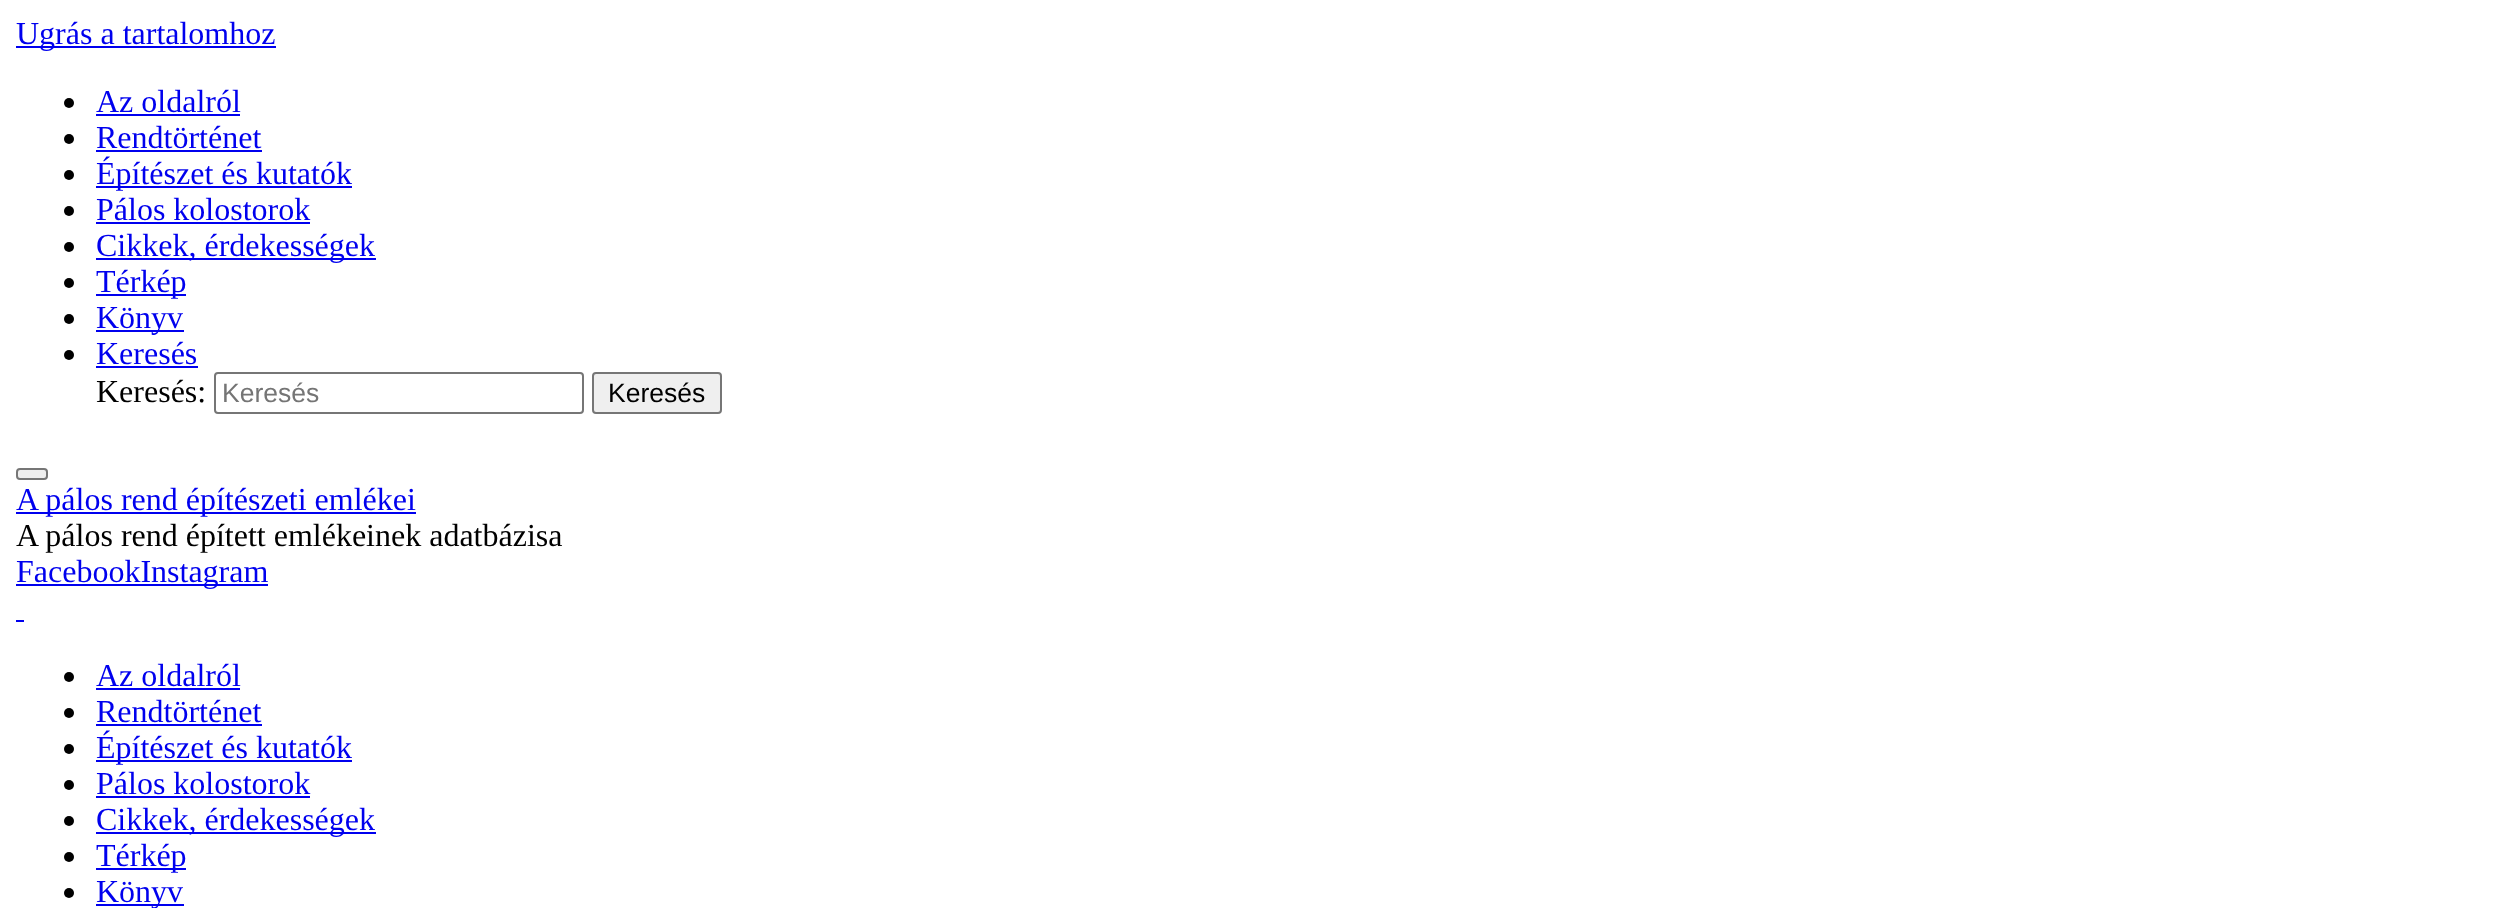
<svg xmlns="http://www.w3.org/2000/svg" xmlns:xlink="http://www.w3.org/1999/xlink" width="2516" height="908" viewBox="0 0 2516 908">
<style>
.cls-1{font:32px Liberation Serif;fill:#0000ee}
.cls-2{font:32px Liberation Serif;fill:#000000}
.cls-3{font:26.5px Liberation Sans;fill:#757575}
.cls-4{font:26.5px Liberation Sans;fill:#000000}
</style>
<rect width="100%" height="100%" fill="#ffffff"/>
<rect fill="#0000ee" x="16" y="46" width="260" height="2"/>
<circle fill="#000000" cx="69" cy="103" r="5"/>
<rect fill="#0000ee" x="96" y="114" width="144" height="2"/>
<circle fill="#000000" cx="69" cy="139" r="5"/>
<rect fill="#0000ee" x="96" y="150" width="166" height="2"/>
<circle fill="#000000" cx="69" cy="175" r="5"/>
<rect fill="#0000ee" x="96" y="186" width="256" height="2"/>
<circle fill="#000000" cx="69" cy="211" r="5"/>
<rect fill="#0000ee" x="96" y="222" width="214" height="2"/>
<circle fill="#000000" cx="69" cy="247" r="5"/>
<rect fill="#0000ee" x="96" y="258" width="280" height="2"/>
<circle fill="#000000" cx="69" cy="283" r="5"/>
<rect fill="#0000ee" x="96" y="294" width="90" height="2"/>
<circle fill="#000000" cx="69" cy="319" r="5"/>
<rect fill="#0000ee" x="96" y="330" width="88" height="2"/>
<circle fill="#000000" cx="69" cy="355" r="5"/>
<rect fill="#0000ee" x="96" y="366" width="102" height="2"/>
<rect fill="none" stroke="#767676" stroke-width="2" x="215" y="373" width="368" height="40" rx="3"/>
<rect fill="#efefef" stroke="#767676" stroke-width="2" x="593" y="373" width="128" height="40" rx="3"/>
<rect fill="#efefef" stroke="#767676" stroke-width="2" x="17" y="469" width="30" height="10" rx="3"/>
<rect fill="#0000ee" x="16" y="512" width="400" height="2"/>
<rect fill="#0000ee" x="16" y="584" width="252" height="2"/>
<rect fill="#0000ee" x="16" y="620" width="8" height="2"/>
<circle fill="#000000" cx="69" cy="677" r="5"/>
<rect fill="#0000ee" x="96" y="688" width="144" height="2"/>
<circle fill="#000000" cx="69" cy="713" r="5"/>
<rect fill="#0000ee" x="96" y="724" width="166" height="2"/>
<circle fill="#000000" cx="69" cy="749" r="5"/>
<rect fill="#0000ee" x="96" y="760" width="256" height="2"/>
<circle fill="#000000" cx="69" cy="785" r="5"/>
<rect fill="#0000ee" x="96" y="796" width="214" height="2"/>
<circle fill="#000000" cx="69" cy="821" r="5"/>
<rect fill="#0000ee" x="96" y="832" width="280" height="2"/>
<circle fill="#000000" cx="69" cy="857" r="5"/>
<rect fill="#0000ee" x="96" y="868" width="90" height="2"/>
<circle fill="#000000" cx="69" cy="893" r="5"/>
<rect fill="#0000ee" x="96" y="904" width="88" height="2"/>
<text class="cls-1" x="16" y="44">Ugrás a tartalomhoz</text>
<text class="cls-1"><tspan x="96" y="112">Az oldalról</tspan><tspan x="96" y="148">Rendtörténet</tspan><tspan x="96" y="184">Építészet és kutatók</tspan><tspan x="96" y="220">Pálos kolostorok</tspan><tspan x="96" y="256">Cikkek, érdekességek</tspan><tspan x="96" y="292">Térkép</tspan><tspan x="96" y="328">Könyv</tspan><tspan x="96" y="364">Keresés</tspan></text>
<text class="cls-2" x="96" y="402">Keresés:</text>
<text class="cls-3" x="222" y="402">Keresés</text>
<text class="cls-4" x="608" y="402">Keresés</text>
<text class="cls-1" x="16" y="510">A pálos rend építészeti emlékei</text>
<text class="cls-2" x="16" y="546">A pálos rend épített emlékeinek adatbázisa</text>
<text class="cls-1" x="16" y="582">FacebookInstagram</text>
<text class="cls-1"><tspan x="96" y="686">Az oldalról</tspan><tspan x="96" y="722">Rendtörténet</tspan><tspan x="96" y="758">Építészet és kutatók</tspan><tspan x="96" y="794">Pálos kolostorok</tspan><tspan x="96" y="830">Cikkek, érdekességek</tspan><tspan x="96" y="866">Térkép</tspan><tspan x="96" y="902">Könyv</tspan></text>
</svg>
